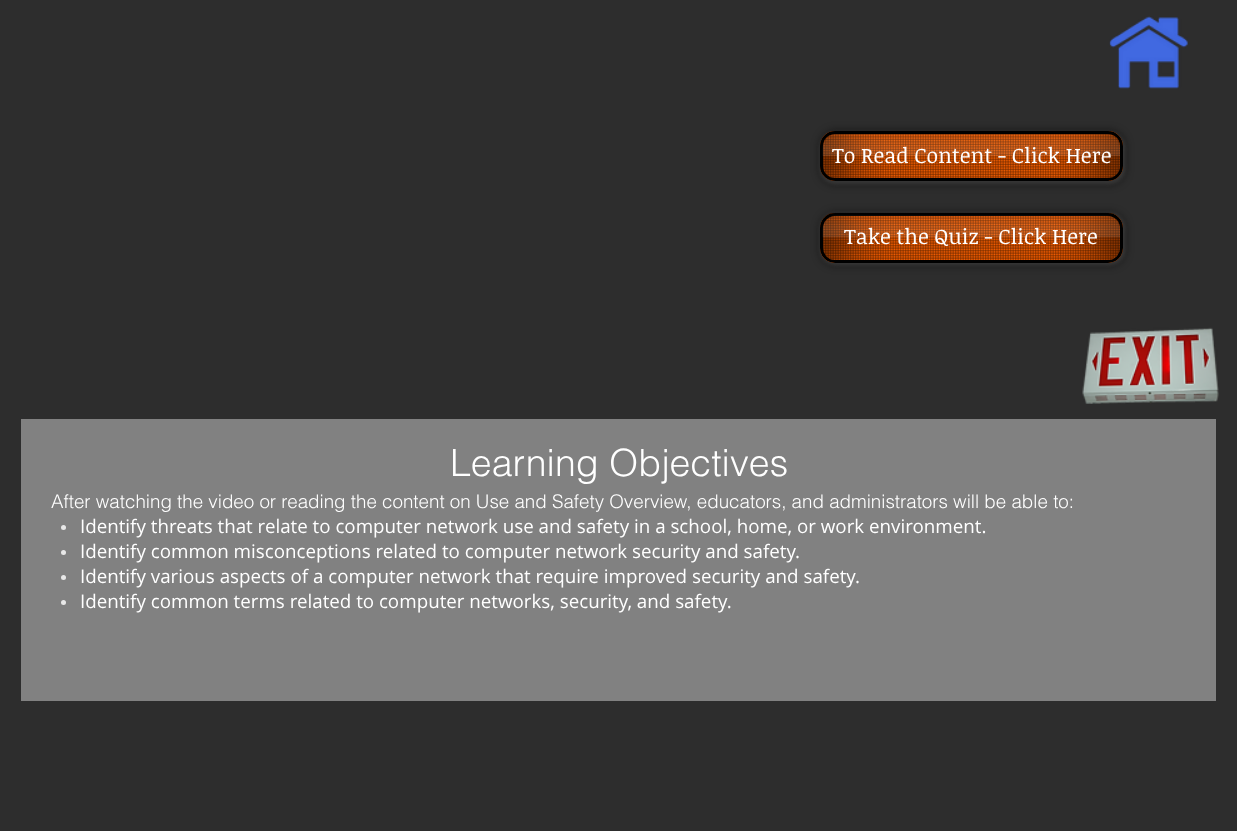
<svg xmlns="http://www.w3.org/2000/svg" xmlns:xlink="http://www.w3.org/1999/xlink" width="1237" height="831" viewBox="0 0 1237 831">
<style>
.cls-1{font:21.25px Noticia Text;fill:#ffffff}
.cls-2{font:300 37.5px helvetica;fill:#ffffff}
.cls-3{font:300 18.75px helvetica;fill:#ffffff}
.cls-4{font:18.75px Open Sans;fill:#ffffff}
</style>
<rect width="100%" height="100%" fill="#2d2d2d"/>
<image xlink:href="image0.png" x="1109" y="16" width="79" height="73"/>
<rect fill="#ffffff" fill-opacity="0.3" filter="blur(2px)" x="821" y="133" width="303" height="50" rx="15"/>
<rect fill="#000000" fill-opacity="0.6" filter="blur(4px)" x="820" y="131" width="305" height="53" rx="16"/>
<rect fill="#fc6000" x="820" y="131" width="303" height="50" rx="15"/>
<image xlink:href="image1.png" x="820" y="131" width="303" height="50"/>
<rect fill="none" stroke="#000000" stroke-width="3" x="821.5" y="132.5" width="300" height="47" rx="13.5"/>
<image xlink:href="image3.png" x="823" y="134" width="61" height="44"/>
<image xlink:href="image4.png" x="1058" y="134" width="62" height="44"/>
<rect fill="#ffffff" fill-opacity="0.3" filter="blur(2px)" x="821" y="214" width="303" height="50" rx="15"/>
<rect fill="#000000" fill-opacity="0.6" filter="blur(4px)" x="820" y="213" width="305" height="52" rx="16"/>
<rect fill="#fc6000" x="820" y="213" width="303" height="50" rx="15"/>
<image xlink:href="image5.png" x="820" y="212" width="303" height="51"/>
<rect fill="none" stroke="#000000" stroke-width="3" x="821.5" y="214.5" width="300" height="47" rx="13.5"/>
<image xlink:href="image7.png" x="823" y="216" width="61" height="44"/>
<image xlink:href="image8.png" x="1058" y="216" width="62" height="44"/>
<image xlink:href="image9.png" x="1082" y="327" width="137" height="77"/>
<rect fill="#818181" x="21" y="419" width="1195" height="282"/>
<circle fill="#e8e8e8" cx="63.5" cy="527.5" r="2.5"/>
<circle fill="#e8e8e8" cx="63.5" cy="552.5" r="2.5"/>
<circle fill="#e8e8e8" cx="63.5" cy="577.5" r="2.5"/>
<circle fill="#e8e8e8" cx="63.5" cy="602.5" r="2.5"/>
<text class="cls-1" x="832" y="163">To Read Content - Click Here</text>
<image xlink:href="image2.png" x="822" y="134" width="298" height="22"/>
<text class="cls-1" x="844" y="244">Take the Quiz - Click Here</text>
<image xlink:href="image6.png" x="822" y="215" width="298" height="23"/>
<text class="cls-2" x="450" y="476">Learning Objectives</text>
<text class="cls-3" x="51" y="508">After watching the video or reading the content on Use and Safety Overview, educators, and administrators will be able to:</text>
<text class="cls-4"><tspan x="80" y="533">Identify threats that relate to computer network use and safety in a school, home, or work environment.</tspan><tspan x="80" y="558">Identify common misconceptions related to computer network security and safety.</tspan><tspan x="80" y="583">Identify various aspects of a computer network that require improved security and safety.</tspan><tspan x="80" y="608">Identify common terms related to computer networks, security, and safety.</tspan></text>
</svg>
